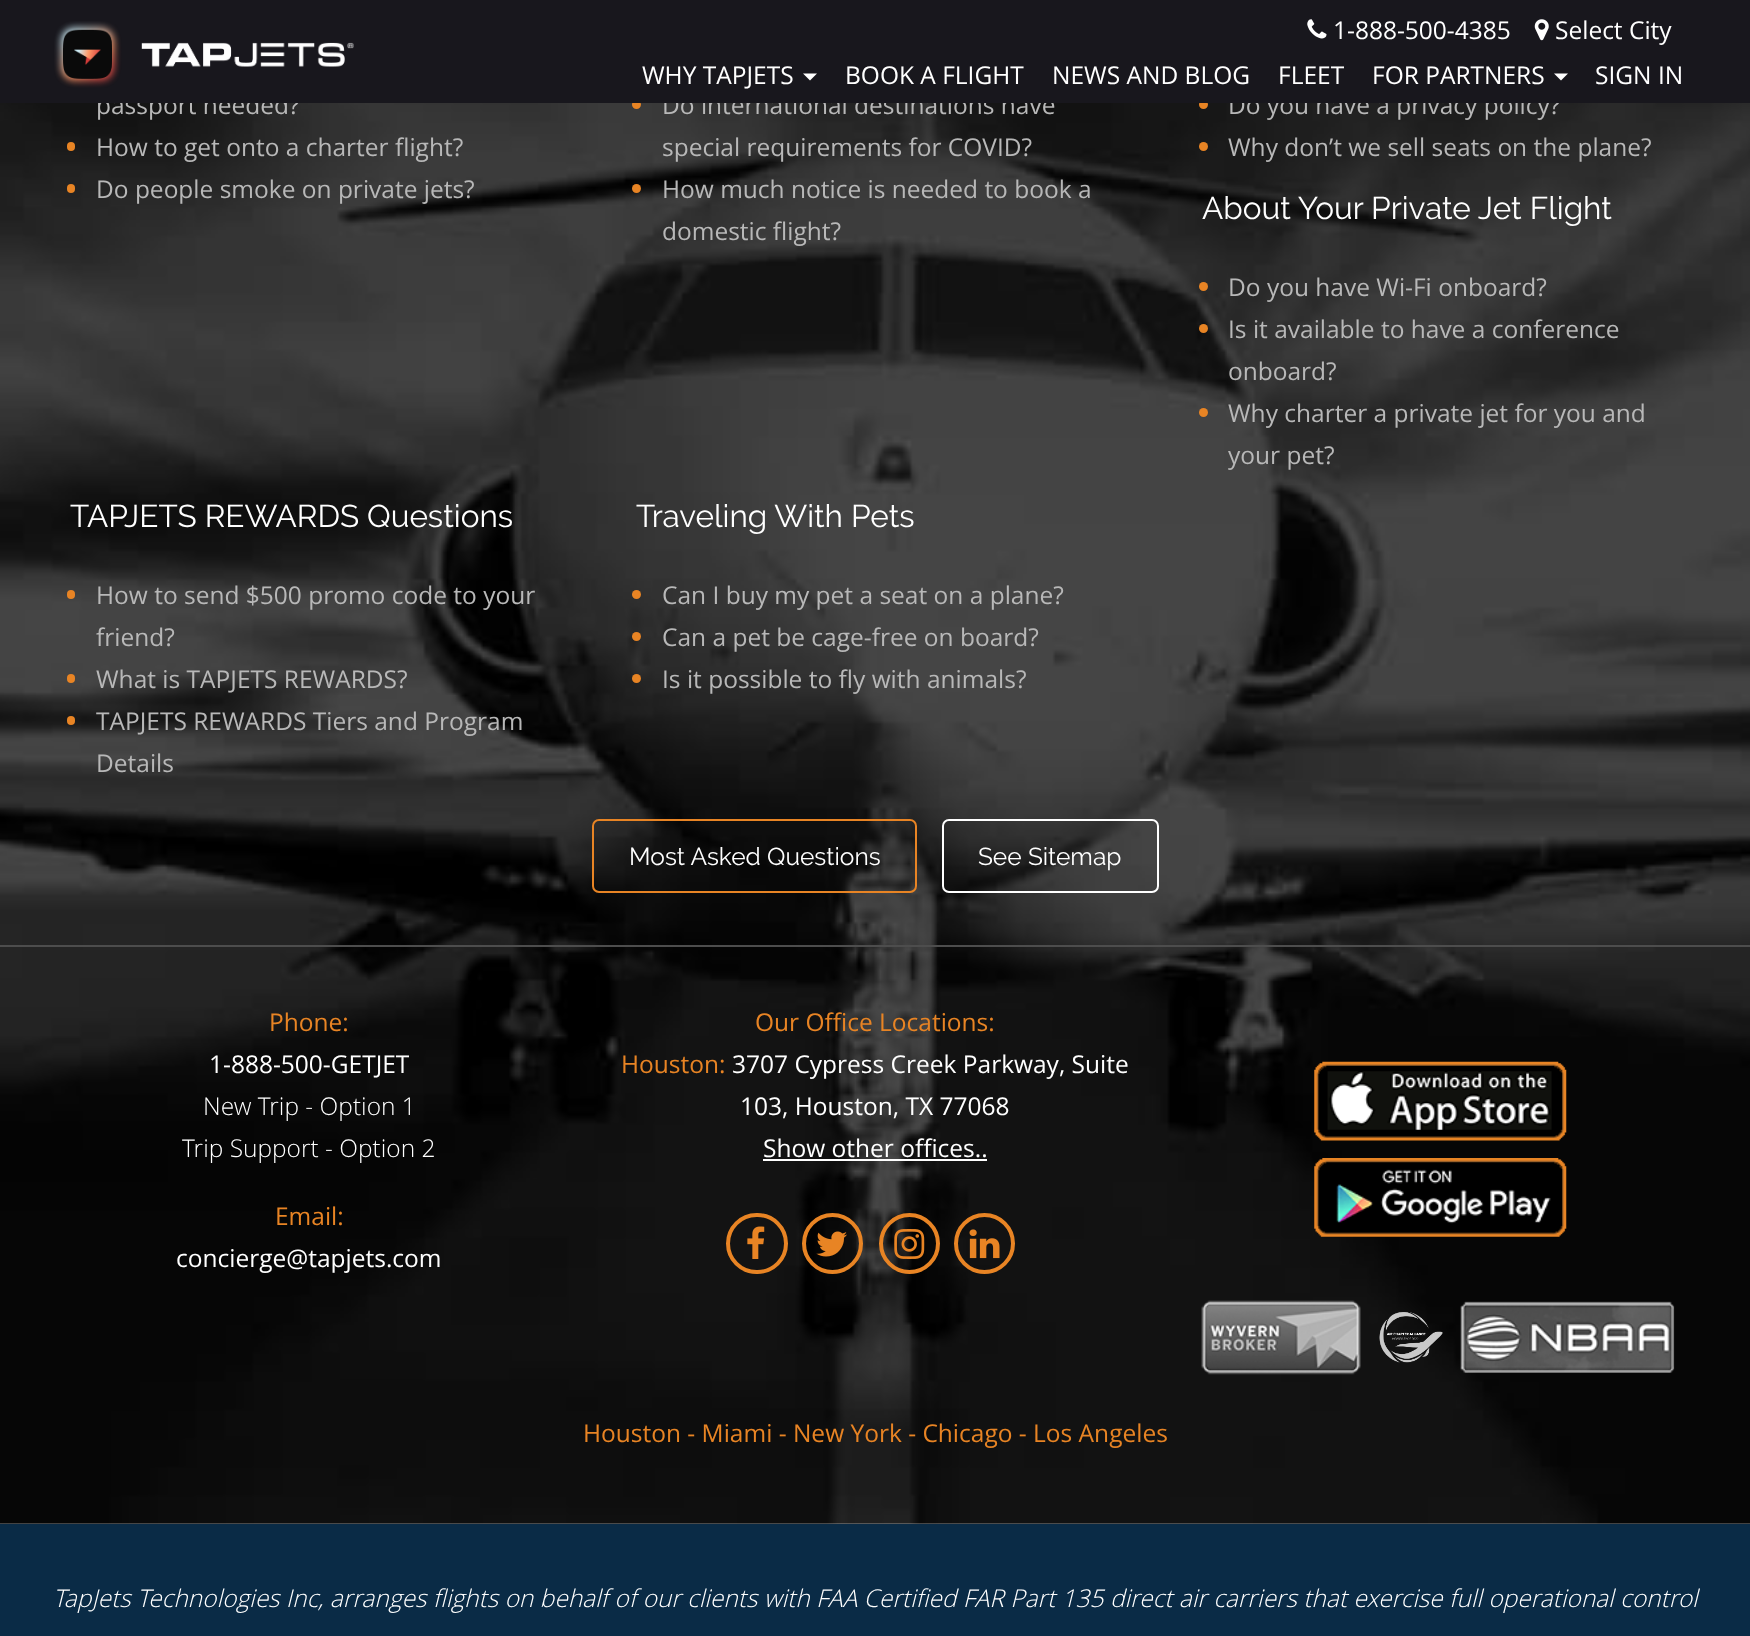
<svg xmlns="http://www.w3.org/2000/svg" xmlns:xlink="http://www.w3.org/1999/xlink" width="1750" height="1636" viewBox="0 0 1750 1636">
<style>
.cls-1{font:24.5px Open Sans;fill:#b8b8b8}
.cls-2{font:24.5px Open Sans;fill:#ffffff}
.cls-3{font:31.5px Raleway;fill:#ffffff}
.cls-4{font:24.5px Raleway;fill:#ffffff}
.cls-5{font:24.5px Open Sans;fill:#e88424}
.cls-6{font:300 24.5px Open Sans;fill:#ffffff}
.cls-7{font:italic 300 24.5px Open Sans;fill:#ffffff}
</style>
<rect width="100%" height="100%" fill="#ffffff"/>
<image xlink:href="image3.png" x="0" y="103" width="1750" height="1421"/>
<rect fill="#e88424" x="67" y="142" width="8" height="9" rx="4"/>
<rect fill="#e88424" x="67" y="184" width="8" height="9" rx="4"/>
<circle fill="#e88424" cx="636.5" cy="104.5" r="4.5"/>
<circle fill="#e88424" cx="636.5" cy="188.5" r="4.5"/>
<circle fill="#e88424" cx="1203.5" cy="104.5" r="4.5"/>
<circle fill="#e88424" cx="1203.5" cy="146.5" r="4.5"/>
<circle fill="#e88424" cx="1203.5" cy="286.5" r="4.5"/>
<circle fill="#e88424" cx="1203.5" cy="328.5" r="4.5"/>
<circle fill="#e88424" cx="1203.5" cy="412.5" r="4.5"/>
<rect fill="#e88424" x="67" y="590" width="8" height="9" rx="4"/>
<rect fill="#e88424" x="67" y="674" width="8" height="9" rx="4"/>
<rect fill="#e88424" x="67" y="716" width="8" height="9" rx="4"/>
<circle fill="#e88424" cx="636.5" cy="594.5" r="4.5"/>
<circle fill="#e88424" cx="636.5" cy="636.5" r="4.5"/>
<circle fill="#e88424" cx="636.5" cy="678.5" r="4.5"/>
<rect fill="none" stroke="#e88424" stroke-width="2" x="593" y="820" width="323" height="72" rx="6"/>
<rect fill="none" stroke="#ffffff" stroke-width="2" x="943" y="820" width="215" height="72" rx="6"/>
<rect fill="#4d4d4d" x="0" y="945" width="1750" height="2"/>
<rect fill="#ffffff" x="763" y="1159" width="224" height="2"/>
<rect fill="none" stroke="#e88424" stroke-width="4" x="728" y="1215" width="58" height="57" rx="28.5"/>
<image xlink:href="image4.png" x="747" y="1226" width="18" height="33"/>
<circle fill="none" stroke="#e88424" stroke-width="4" cx="832.5" cy="1243.5" r="28.5"/>
<image xlink:href="image5.png" x="816" y="1231" width="31" height="26"/>
<circle fill="none" stroke="#e88424" stroke-width="4" cx="909.5" cy="1243.5" r="28.5"/>
<image xlink:href="image6.png" x="894" y="1229" width="31" height="30"/>
<circle fill="none" stroke="#e88424" stroke-width="4" cx="984.5" cy="1243.5" r="28.5"/>
<image xlink:href="image7.png" x="969" y="1229" width="31" height="30"/>
<image xlink:href="image8.png" x="1314" y="1061" width="253" height="80"/>
<image xlink:href="image9.png" x="1314" y="1158" width="253" height="79"/>
<image xlink:href="image10.png" x="1201" y="1300" width="160" height="75"/>
<image xlink:href="image11.png" x="1379" y="1312" width="64" height="51"/>
<image xlink:href="image12.png" x="1460" y="1301" width="215" height="72"/>
<rect fill="#0a2b46" x="0" y="1524" width="1750" height="112"/>
<text class="cls-1"><tspan x="96" y="114">passport needed?</tspan><tspan x="96" y="156">How to get onto a charter flight?</tspan><tspan x="96" y="198">Do people smoke on private jets?</tspan></text>
<text class="cls-1"><tspan x="662" y="114">Do international destinations have</tspan><tspan x="662" y="156">special requirements for COVID?</tspan><tspan x="662" y="198">How much notice is needed to book a</tspan><tspan x="662" y="240">domestic flight?</tspan></text>
<text class="cls-1" x="1228" y="114">Do you have a privacy policy?</text>
<rect fill="#18171d" x="0" y="0" width="1750" height="103"/>
<text class="cls-2" x="1595" y="84">SIGN IN</text>
<path fill="#ffffff" d="M1554 73.5H1568L1561 80.5Z"/>
<text class="cls-2" x="1372" y="84">FOR PARTNERS</text>
<text class="cls-2" x="1278" y="84">FLEET</text>
<text class="cls-2" x="1052" y="84">NEWS AND BLOG</text>
<text class="cls-2" x="845" y="84">BOOK A FLIGHT</text>
<path fill="#ffffff" d="M803 73.5H817L810 80.5Z"/>
<text class="cls-2" x="642" y="84">WHY TAPJETS</text>
<text class="cls-2" x="1555" y="39">Select City</text>
<image xlink:href="image2.png" x="1534" y="19" width="15" height="22"/>
<text class="cls-2" x="1333" y="39">1-888-500-4385</text>
<image xlink:href="image1.png" x="1307" y="19" width="20" height="20"/>
<image xlink:href="image0.png" x="54" y="21" width="300" height="67"/>
<text class="cls-1" x="1228" y="156">Why don’t we sell seats on the plane?</text>
<text class="cls-3" x="1202" y="219">About Your Private Jet Flight</text>
<text class="cls-1"><tspan x="1228" y="296">Do you have Wi-Fi onboard?</tspan><tspan x="1228" y="338">Is it available to have a conference</tspan><tspan x="1228" y="380">onboard?</tspan><tspan x="1228" y="422">Why charter a private jet for you and</tspan><tspan x="1228" y="464">your pet?</tspan></text>
<text class="cls-3" x="70" y="527">TAPJETS REWARDS Questions</text>
<text class="cls-1"><tspan x="96" y="604">How to send $500 promo code to your</tspan><tspan x="96" y="646">friend?</tspan><tspan x="96" y="688">What is TAPJETS REWARDS?</tspan><tspan x="96" y="730">TAPJETS REWARDS Tiers and Program</tspan><tspan x="96" y="772">Details</tspan></text>
<text class="cls-3" x="636" y="527">Traveling With Pets</text>
<text class="cls-1"><tspan x="662" y="604">Can I buy my pet a seat on a plane?</tspan><tspan x="662" y="646">Can a pet be cage-free on board?</tspan><tspan x="662" y="688">Is it possible to fly with animals?</tspan></text>
<text class="cls-4" x="629" y="865">Most Asked Questions</text>
<text class="cls-4" x="978" y="865">See Sitemap</text>
<text class="cls-5" x="269" y="1031">Phone:</text>
<text class="cls-2" x="209" y="1073">1-888-500-GETJET</text>
<text class="cls-6" x="203" y="1115">New Trip - Option 1</text>
<text class="cls-6" x="182" y="1157">Trip Support - Option 2</text>
<text class="cls-5" x="275" y="1225">Email:</text>
<text class="cls-2" x="176" y="1267">concierge@tapjets.com</text>
<text class="cls-5" x="755" y="1031">Our Office Locations:</text>
<text class="cls-5" x="621" y="1073">Houston:</text>
<text class="cls-2" x="732" y="1073">3707 Cypress Creek Parkway, Suite</text>
<text class="cls-2" x="740" y="1115">103, Houston, TX 77068</text>
<text class="cls-2" x="763" y="1157">Show other offices..</text>
<text class="cls-5" x="583" y="1442">Houston - Miami - New York - Chicago - Los Angeles</text>
<text class="cls-7" x="53" y="1607">TapJets Technologies Inc, arranges flights on behalf of our clients with FAA Certified FAR Part 135 direct air carriers that exercise full operational control</text>
</svg>
